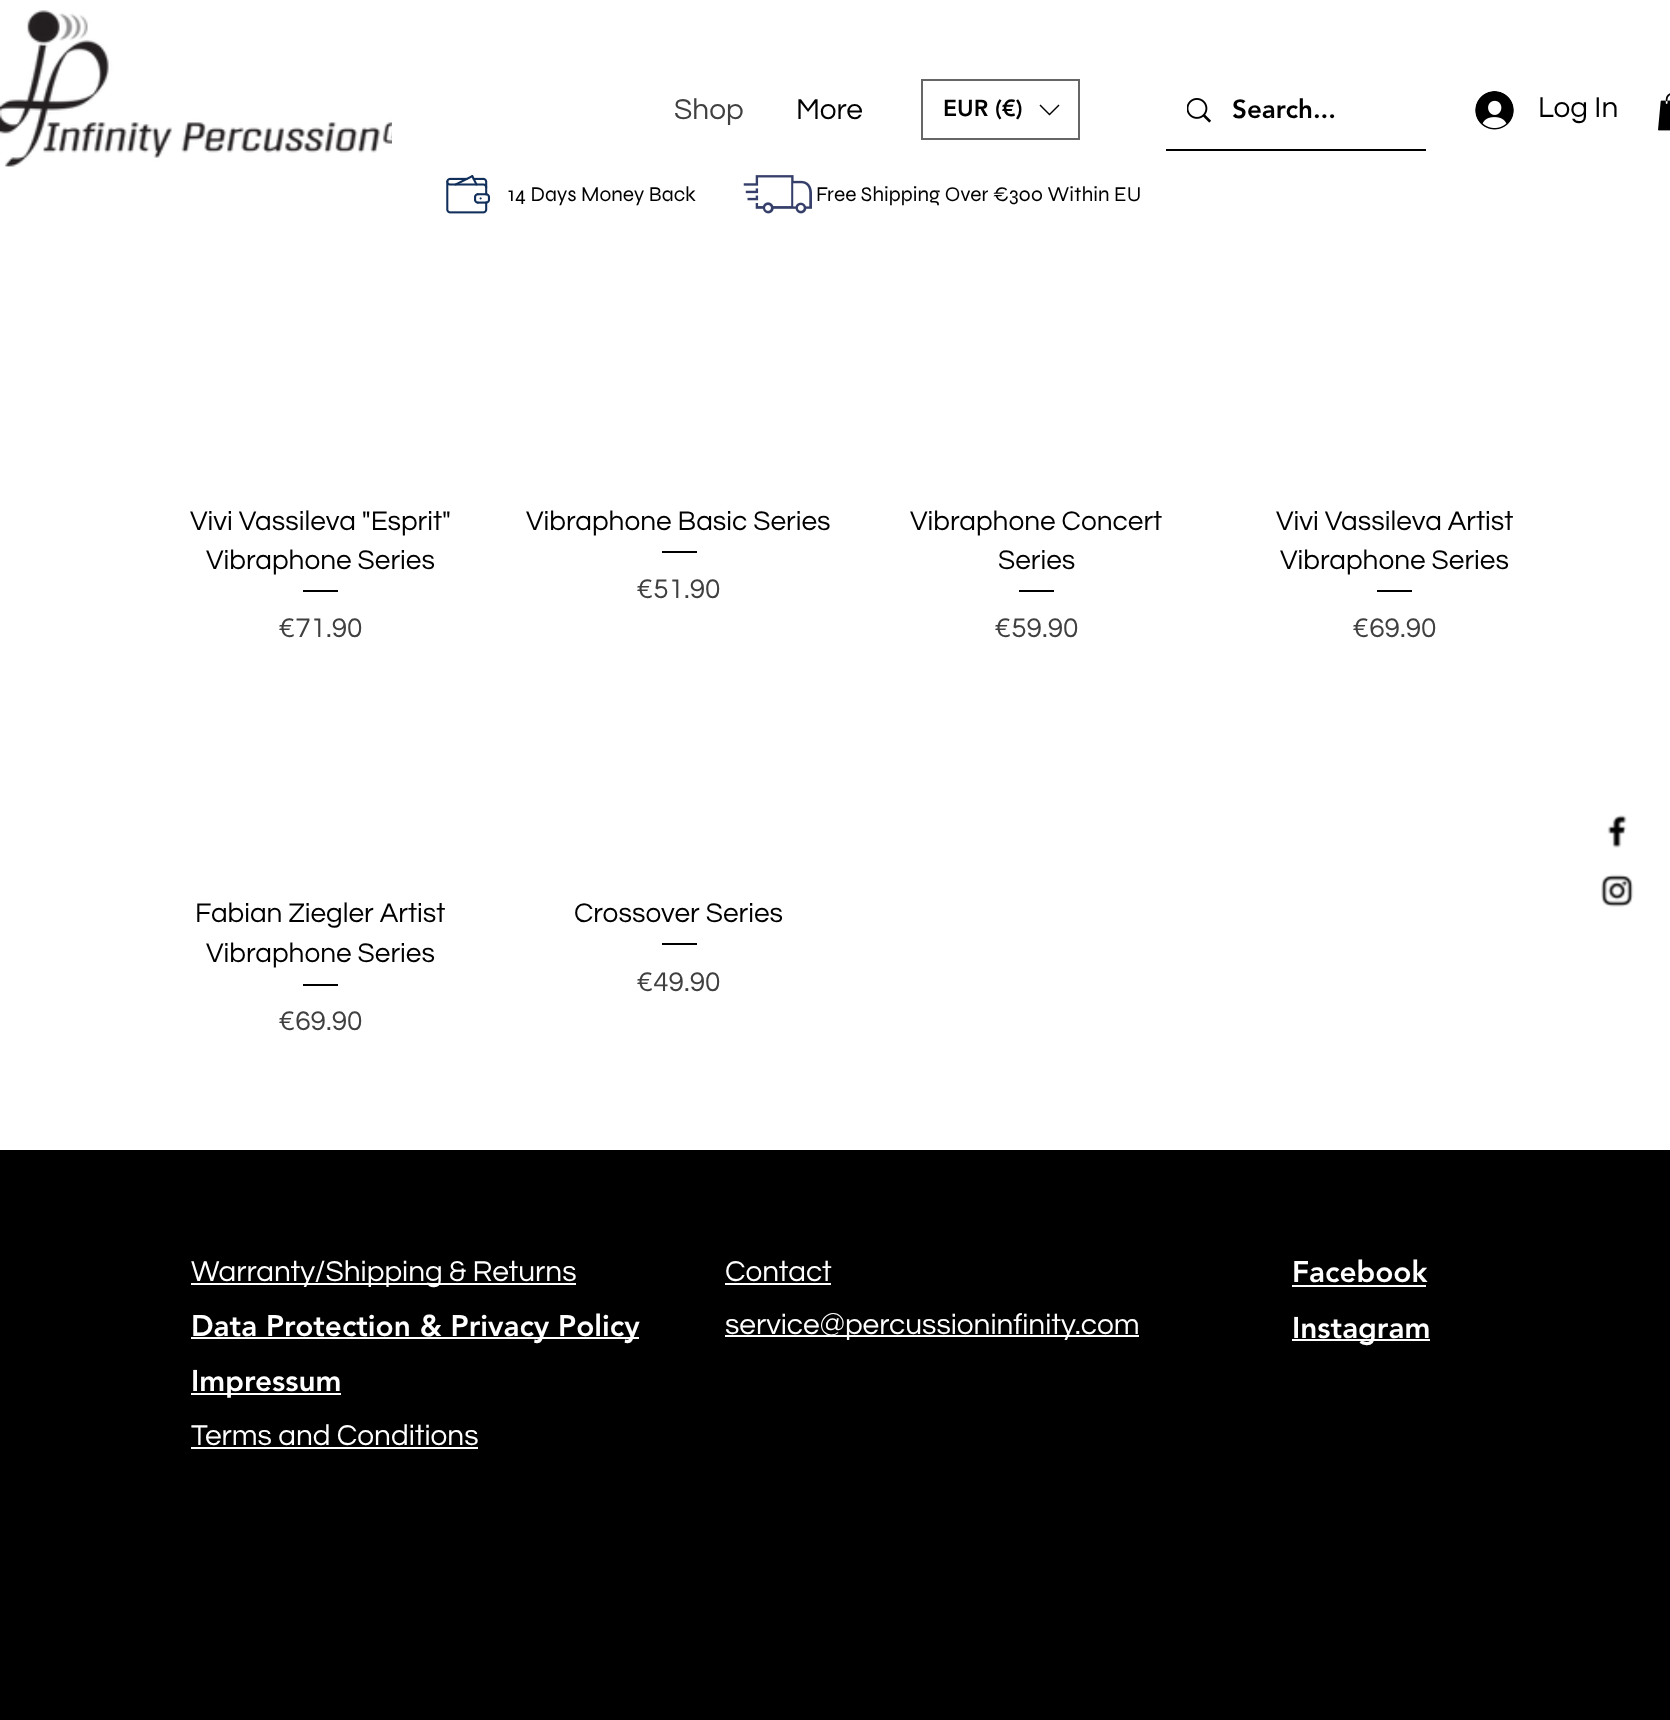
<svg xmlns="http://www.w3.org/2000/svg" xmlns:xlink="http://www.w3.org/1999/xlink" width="1670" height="1720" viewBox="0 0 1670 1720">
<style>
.cls-1{font:29.75px Questrial;fill:#404040}
.cls-2{font:29.75px Questrial;fill:#000000}
.cls-3{font:900 23px 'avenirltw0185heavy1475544';fill:#000000}
.cls-4{font:21px Syne;fill:#000000}
.cls-5{font:900 26px 'avenirltw0185heavy1475544';fill:#000000}
.cls-6{font:28px Questrial;fill:#000000}
.cls-7{font:28px Questrial;fill:#404040}
.cls-8{font:29.75px Questrial;fill:#ffffff}
.cls-9{font:900 29.75px 'avenirltw0185heavy1475544';fill:#ffffff}
</style>
<rect width="100%" height="100%" fill="#ffffff"/>
<image xlink:href="image0.png" x="0" y="10" width="392" height="157"/>
<rect fill="none" stroke="#666666" stroke-width="2" x="922" y="80" width="157" height="59"/>
<path fill="#000000" fill-rule="evenodd" d="M1058.5 104.5L1059.5 105.5L1049.5 115.5L1039.5 105.5L1040.5 104.5L1049.5 113.5Z"/>
<image xlink:href="image1.png" x="446" y="175" width="44" height="39"/>
<image xlink:href="image2.png" x="743" y="175" width="69" height="39"/>
<rect fill="#000000" x="1166" y="149" width="260" height="2"/>
<image xlink:href="image3.png" x="1187" y="98" width="24" height="25"/>
<image xlink:href="image4.png" x="1475" y="91" width="39" height="39"/>
<image xlink:href="image5.png" x="1658" y="93" width="12" height="38"/>
<rect fill="#000000" x="303" y="590" width="35" height="2"/>
<rect fill="#000000" x="662" y="551" width="35" height="2"/>
<rect fill="#000000" x="1019" y="590" width="35" height="2"/>
<rect fill="#000000" x="1377" y="590" width="35" height="2"/>
<rect fill="#000000" x="303" y="984" width="35" height="2"/>
<rect fill="#000000" x="662" y="943" width="35" height="2"/>
<image xlink:href="image6.png" x="1607" y="815" width="20" height="33"/>
<image xlink:href="image7.png" x="1601" y="874" width="33" height="33"/>
<rect fill="#000000" x="0" y="1150" width="1670" height="570"/>
<rect fill="#ffffff" x="191" y="1283" width="385" height="2"/>
<rect fill="#ffffff" x="191" y="1337" width="448" height="2"/>
<rect fill="#ffffff" x="191" y="1393" width="150" height="2"/>
<rect fill="#ffffff" x="191" y="1447" width="287" height="2"/>
<rect fill="#ffffff" x="725" y="1283" width="106" height="2"/>
<rect fill="#ffffff" x="725" y="1335" width="414" height="2"/>
<rect fill="#ffffff" x="1292" y="1285" width="134" height="2"/>
<rect fill="#ffffff" x="1292" y="1339" width="138" height="2"/>
<text class="cls-1" x="674" y="119">Shop</text>
<text class="cls-2" x="796" y="119">More</text>
<text class="cls-3" x="943" y="116">EUR (€)</text>
<text class="cls-4" x="508" y="201">14 Days Money Back</text>
<text class="cls-5" x="1232" y="118">Search...</text>
<text class="cls-2" x="1538" y="117">Log In</text>
<text class="cls-4" x="816" y="201">Free Shipping Over €300 Within EU</text>
<text class="cls-6" x="190" y="530">Vivi Vassileva "Esprit"</text>
<text class="cls-6" x="206" y="569">Vibraphone Series</text>
<text class="cls-7" x="278" y="637">€71.90</text>
<text class="cls-6" x="526" y="530">Vibraphone Basic Series</text>
<text class="cls-7" x="636" y="598">€51.90</text>
<text class="cls-6" x="910" y="530">Vibraphone Concert</text>
<text class="cls-6" x="998" y="569">Series</text>
<text class="cls-7" x="994" y="637">€59.90</text>
<text class="cls-6" x="1276" y="530">Vivi Vassileva Artist</text>
<text class="cls-6" x="1280" y="569">Vibraphone Series</text>
<text class="cls-7" x="1352" y="637">€69.90</text>
<text class="cls-6" x="195" y="922">Fabian Ziegler Artist</text>
<text class="cls-6" x="206" y="962">Vibraphone Series</text>
<text class="cls-7" x="278" y="1030">€69.90</text>
<text class="cls-6" x="574" y="922">Crossover Series</text>
<text class="cls-7" x="636" y="991">€49.90</text>
<text class="cls-8" x="191" y="1281">Warranty/Shipping &amp; Returns</text>
<text class="cls-9"><tspan x="191" y="1336">Data Protection &amp; Privacy Policy</tspan><tspan x="191" y="1391">Impressum</tspan></text>
<text class="cls-8" x="191" y="1445">Terms and Conditions</text>
<text class="cls-8"><tspan x="725" y="1281">Contact</tspan><tspan x="725" y="1334">service@percussioninfinity.com</tspan></text>
<text class="cls-9"><tspan x="1292" y="1282">Facebook</tspan><tspan x="1292" y="1338">Instagram</tspan></text>
</svg>
